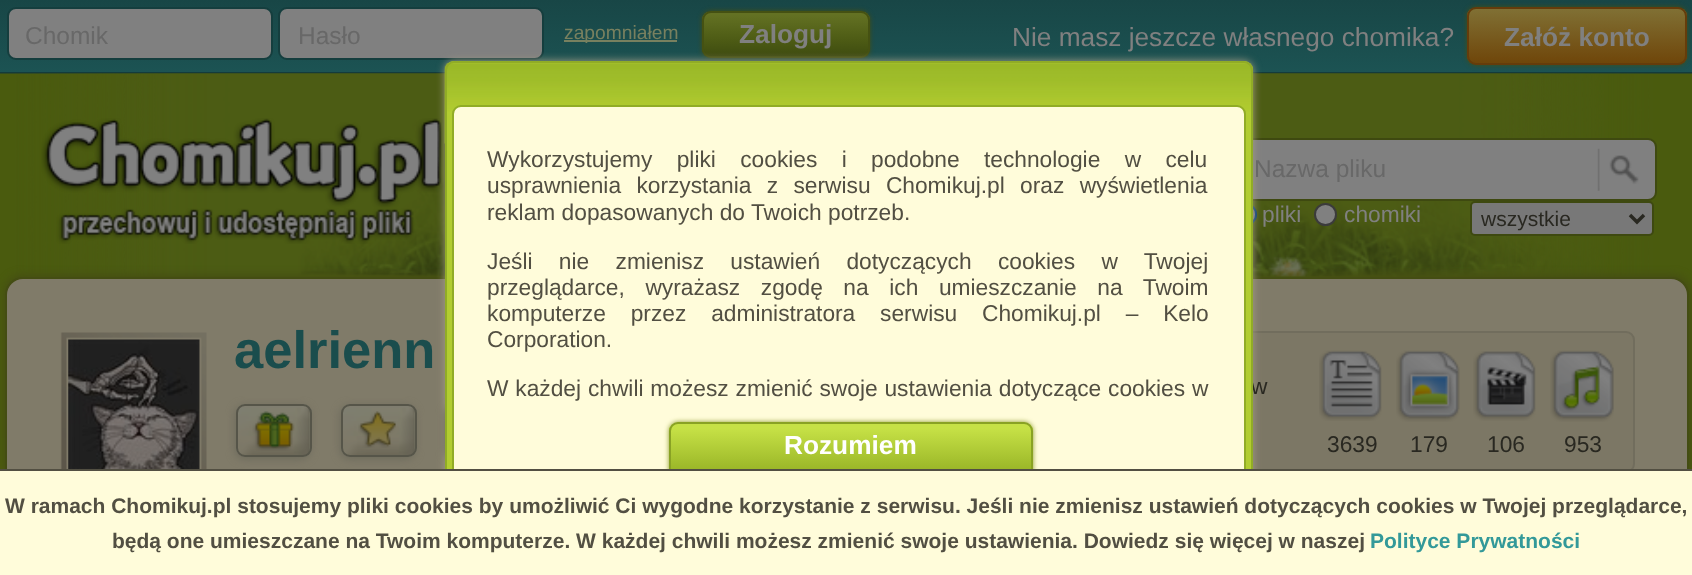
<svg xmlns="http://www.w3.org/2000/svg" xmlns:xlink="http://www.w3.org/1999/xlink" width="1692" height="575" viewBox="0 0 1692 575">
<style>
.cls-1{font:24.5px Liberation Sans;fill:#686868}
.cls-2{font:19.25px Liberation Sans;fill:#78805f}
.cls-3{font:bold 26.25px Liberation Sans;fill:#808080}
.cls-4{font:26.25px Liberation Sans;fill:#808080}
.cls-5{font:21px Liberation Sans;fill:#292821}
.cls-6{font:22.75px Liberation Sans;fill:#808080}
.cls-7{font:bold 52.5px Liberation Sans;fill:#1a4d4d}
.cls-8{font:22.75px Liberation Sans;fill:#292821}
.cls-9{font:22.75px Liberation Sans;fill:#524f42}
.cls-10{font:bold 26.25px Liberation Sans;fill:#ffffff}
.cls-11{font:bold 21px Liberation Sans;fill:#524f42}
.cls-12{font:bold 21px Liberation Sans;fill:#339999}
</style>
<defs>
<linearGradient id="g1" gradientUnits="userSpaceOnUse" x1="846" y1="0" x2="846" y2="72"><stop offset="0" stop-color="#184646"/><stop offset="1" stop-color="#1c5353"/></linearGradient>
<clipPath id="clip1"><rect x="702" y="11" width="168" height="47" rx="9"/></clipPath>
<linearGradient id="g2" gradientUnits="userSpaceOnUse" x1="786" y1="12" x2="786" y2="56"><stop offset="0" stop-color="#637123"/><stop offset="0.06" stop-color="#637123"/><stop offset="0.61" stop-color="#4e5c15"/><stop offset="0.83" stop-color="#455312"/><stop offset="1" stop-color="#3f4b10"/></linearGradient>
<clipPath id="clip2"><rect x="1467" y="7" width="220" height="58" rx="9"/></clipPath>
<linearGradient id="g3" gradientUnits="userSpaceOnUse" x1="1577" y1="9" x2="1577" y2="63"><stop offset="0" stop-color="#807034"/><stop offset="1" stop-color="#6f460a"/></linearGradient>
<clipPath id="clip3"><rect x="669" y="422" width="364" height="77" rx="9"/></clipPath>
<linearGradient id="g4" gradientUnits="userSpaceOnUse" x1="851" y1="424" x2="851" y2="497"><stop offset="0" stop-color="#c6e146"/><stop offset="0.06" stop-color="#c6e146"/><stop offset="0.61" stop-color="#9cb829"/><stop offset="0.83" stop-color="#8aa524"/><stop offset="1" stop-color="#7d9520"/></linearGradient>
</defs>
<rect width="100%" height="100%" fill="#ffffff"/>
<rect fill="url(#g1)" x="0" y="0" width="1692" height="72"/>
<rect fill="#143b3b" x="0" y="72" width="1692" height="2"/>
<rect fill="#808080" stroke="#153e3e" stroke-width="2" x="8" y="8" width="264" height="51" rx="8"/>
<rect fill="#808080" stroke="#153e3e" stroke-width="2" x="279" y="8" width="264" height="51" rx="8"/>
<rect fill="#78805f" x="564" y="40" width="113" height="2"/>
<rect fill="#454d13" filter="blur(2.5px)" x="702" y="11" width="168" height="47" rx="9"/>
<g clip-path="url(#clip1)">
<rect fill="url(#g2)" x="702" y="12" width="168" height="44"/>
</g>
<rect fill="none" stroke="#455112" stroke-width="2" x="703" y="12" width="166" height="45" rx="8"/>
<image xlink:href="image1.png" x="0" y="73" width="1692" height="396"/>
<rect fill="#454d13" filter="blur(2.5px)" x="1467" y="7" width="220" height="58" rx="9"/>
<g clip-path="url(#clip2)">
<rect fill="url(#g3)" x="1467" y="9" width="220" height="54"/>
</g>
<rect fill="none" stroke="#653c0b" stroke-width="2" x="1468" y="8" width="218" height="56" rx="8"/>
<image xlink:href="image2.png" x="15" y="73" width="1638" height="204"/>
<image xlink:href="image3.png" x="41" y="118" width="402" height="126"/>
<rect fill="#808080" stroke="#3e4910" stroke-width="2" x="1235" y="139" width="421" height="61" rx="8"/>
<circle fill="#808080" stroke="#003b80" stroke-width="2" cx="1245.5" cy="214.5" r="10.5"/>
<rect fill="#454d13" filter="blur(4.5px)" x="4" y="275" width="1687" height="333" rx="19"/>
<rect fill="#807b69" stroke="#444d13" stroke-width="2" x="6" y="278" width="1682" height="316" rx="17"/>
<rect fill="#7c7765" stroke="#716d5d" stroke-width="2" x="1107" y="332" width="527" height="140" rx="8"/>
<rect fill="#a39d85" filter="blur(4.5px)" x="445" y="61" width="808" height="459" rx="9"/>
<image xlink:href="image4.png" x="1597" y="148" width="42" height="43"/>
<rect fill="#787878" stroke="#3e4910" stroke-width="2" x="1471" y="202" width="182" height="33" rx="4"/>
<path fill="none" stroke="#292821" stroke-width="3.5" d="M1630 215L1637 222L1644 215"/>
<circle fill="#808080" stroke="#3b3b3b" stroke-width="2" cx="1325.5" cy="214.5" r="10.5"/>
<image xlink:href="image6.png" x="68" y="339" width="132" height="130"/>
<image xlink:href="image5.png" x="60" y="332" width="147" height="137"/>
<rect fill="#6c6a5c" filter="blur(4.5px)" x="235" y="406" width="75" height="53" rx="9"/>
<rect fill="#7f7d6f" x="236" y="404" width="76" height="53" rx="9"/>
<image xlink:href="image7.png" x="238" y="407" width="72" height="48"/>
<rect fill="none" stroke="#565549" stroke-width="2" x="237" y="405" width="74" height="51" rx="8"/>
<image xlink:href="image8.png" x="252" y="411" width="43" height="40"/>
<rect fill="#6c6a5c" filter="blur(4.5px)" x="340" y="406" width="75" height="53" rx="9"/>
<rect fill="#7f7d6f" x="341" y="404" width="76" height="53" rx="9"/>
<image xlink:href="image7.png" x="343" y="407" width="72" height="48"/>
<rect fill="none" stroke="#565549" stroke-width="2" x="342" y="405" width="74" height="51" rx="8"/>
<image xlink:href="image9.png" x="358" y="411" width="38" height="37"/>
<rect fill="#6c6a5c" filter="blur(4.5px)" x="445" y="406" width="75" height="53" rx="9"/>
<image xlink:href="image10.png" x="1319" y="350" width="63" height="71"/>
<image xlink:href="image11.png" x="1396" y="350" width="64" height="72"/>
<image xlink:href="image12.png" x="1473" y="351" width="63" height="70"/>
<image xlink:href="image13.png" x="1550" y="350" width="64" height="72"/>
<text class="cls-1" x="25" y="44">Chomik</text>
<text class="cls-1" x="298" y="44">Hasło</text>
<text class="cls-2" x="564" y="39">zapomniałem</text>
<text class="cls-3" x="739" y="43">Zaloguj</text>
<text class="cls-4" x="1012" y="46">Nie masz jeszcze własnego chomika?</text>
<text class="cls-3" x="1504" y="46">Załóż konto</text>
<text class="cls-1" x="1254" y="177">Nazwa pliku</text>
<text class="cls-5" x="1481" y="226">wszystkie</text>
<text class="cls-6" x="1262" y="222">pliki</text>
<text class="cls-6" x="1344" y="222">chomiki</text>
<text class="cls-7" x="234" y="368">aelrienn</text>
<text class="cls-8" x="1251" y="394">w</text>
<rect fill="#b2cd31" x="445" y="61" width="808" height="459" rx="9"/>
<image xlink:href="image0.png" x="444" y="62" width="810" height="82"/>
<rect fill="none" stroke="#91ac26" stroke-width="2" x="446" y="62" width="806" height="457" rx="8"/>
<rect fill="#fffcda" stroke="#91ac26" stroke-width="2" x="453" y="106" width="792" height="402" rx="8"/>
<text class="cls-9" x="487" y="396" word-spacing="0.5">W każdej chwili możesz zmienić swoje ustawienia dotyczące cookies w</text>
<text class="cls-9" x="487" y="347">Corporation.</text>
<text class="cls-9" x="487" y="321" word-spacing="18.5">komputerze przez administratora serwisu Chomikuj.pl – Kelo</text>
<text class="cls-9" x="487" y="295" word-spacing="14.25">przeglądarce, wyrażasz zgodę na ich umieszczanie na Twoim</text>
<text class="cls-9" x="487" y="269" word-spacing="20">Jeśli nie zmienisz ustawień dotyczących cookies w Twojej</text>
<text class="cls-9" x="487" y="220">reklam dopasowanych do Twoich potrzeb.</text>
<text class="cls-9" x="487" y="193" word-spacing="9">usprawnienia korzystania z serwisu Chomikuj.pl oraz wyświetlenia</text>
<text class="cls-9" x="487" y="167" word-spacing="18">Wykorzystujemy pliki cookies i podobne technologie w celu</text>
<rect fill="#899926" filter="blur(2.5px)" x="669" y="422" width="364" height="77" rx="9"/>
<g clip-path="url(#clip3)">
<rect fill="url(#g4)" x="669" y="424" width="364" height="45"/>
</g>
<rect fill="none" stroke="#89a224" stroke-width="2" x="670" y="423" width="362" height="75" rx="8"/>
<text class="cls-10" x="784" y="454">Rozumiem</text>
<text class="cls-8" x="1327" y="452">3639</text>
<text class="cls-8" x="1410" y="452">179</text>
<text class="cls-8" x="1487" y="452">106</text>
<text class="cls-8" x="1564" y="452">953</text>
<rect fill="#fffcda" x="0" y="471" width="1692" height="104"/>
<rect fill="#524f42" x="0" y="469" width="1692" height="2"/>
<text class="cls-11" x="5" y="513">W ramach Chomikuj.pl stosujemy pliki cookies by umożliwić Ci wygodne korzystanie z serwisu. Jeśli nie zmienisz ustawień dotyczących cookies w Twojej przeglądarce,</text>
<text class="cls-11" x="112" y="548">będą one umieszczane na Twoim komputerze. W każdej chwili możesz zmienić swoje ustawienia. Dowiedz się więcej w naszej</text>
<text class="cls-12" x="1370" y="548">Polityce Prywatności</text>
</svg>
